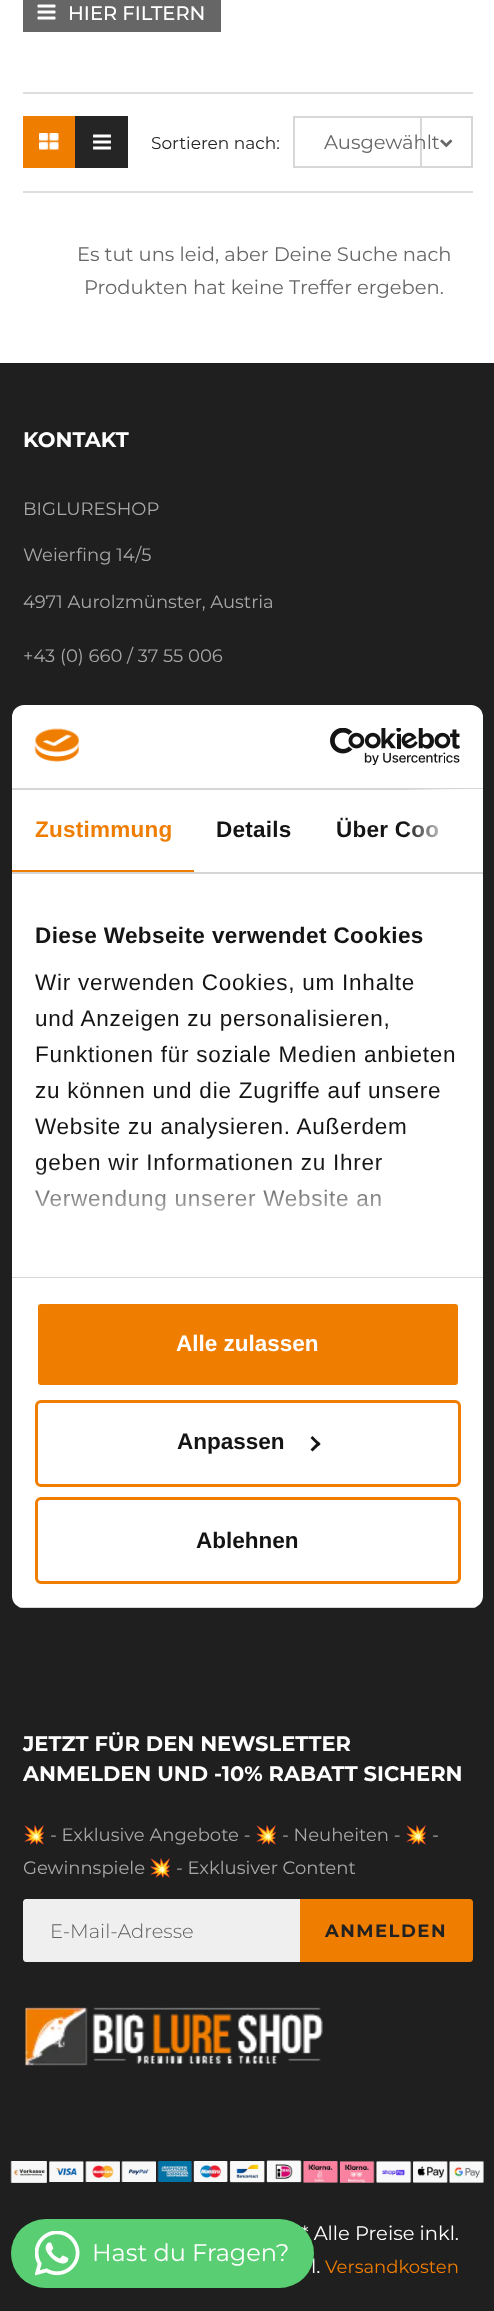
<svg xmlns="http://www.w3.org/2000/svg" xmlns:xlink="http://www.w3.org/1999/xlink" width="494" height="2311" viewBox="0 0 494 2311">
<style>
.cls-1{font:500 19.5px Montserrat;fill:#ffffff}
.cls-2{font:17px Montserrat;fill:#222222}
.cls-3{font:19.5px Montserrat;fill:#666666}
.cls-4{font:bold 21px Montserrat;fill:#ffffff}
.cls-5{font:18px Montserrat;fill:#a8a8a8}
.cls-6{font:18px Noto Color Emoji;fill:#a8a8a8}
.cls-7{font:300 19.5px Montserrat;fill:#606060}
.cls-8{font:bold 18px Montserrat;letter-spacing:1.5px;fill:#222222}
.cls-9{font:19.5px Montserrat;fill:#ffffff}
.cls-10{font:18px Montserrat;fill:#ef7d00}
.cls-11{font:bold 22.5px Liberation Sans;letter-spacing:0.25px;fill:#ef7d00}
.cls-12{font:bold 22.5px Liberation Sans;letter-spacing:0.25px;fill:#141414}
.cls-13{font:bold 22.5px Liberation Sans;letter-spacing:0.4px;fill:#141414}
.cls-14{font:22.5px Liberation Sans;letter-spacing:0.75px;fill:#141414}
.cls-15{font:bold 22.5px Liberation Sans;fill:#ffffff}
.cls-16{font:bold 22.5px Liberation Sans;fill:#141414}
.cls-17{font:24px Montserrat;fill:#ffffff}
</style>
<defs>
<clipPath id="clip1"><rect x="12" y="705" width="471" height="903" rx="12"/></clipPath>
<linearGradient id="g1" gradientUnits="userSpaceOnUse" x1="483" y1="830" x2="405" y2="830"><stop offset="0" stop-color="#ffffff"/><stop offset="0.5" stop-color="#ffffff" stop-opacity="0.8"/><stop offset="1" stop-color="#ffffff" stop-opacity="0"/></linearGradient>
<linearGradient id="g2" gradientUnits="userSpaceOnUse" x1="238" y1="1276" x2="238" y2="1164"><stop offset="0" stop-color="#ffffff"/><stop offset="0.5" stop-color="#ffffff" stop-opacity="0.8"/><stop offset="1" stop-color="#ffffff" stop-opacity="0"/></linearGradient>
</defs>
<rect width="100%" height="100%" fill="#ffffff"/>
<rect fill="#666666" x="23" y="0" width="198" height="32"/>
<image xlink:href="image0.png" x="37" y="4" width="19" height="16"/>
<rect fill="#dddddd" x="23" y="92" width="450" height="2"/>
<rect fill="#dddddd" x="23" y="191" width="450" height="2"/>
<rect fill="#ef7d00" x="23" y="116" width="52" height="52"/>
<image xlink:href="image1.png" x="39" y="133" width="20" height="17"/>
<rect fill="#252525" x="75" y="116" width="53" height="52"/>
<image xlink:href="image2.png" x="93" y="134" width="18" height="16"/>
<rect fill="none" stroke="#d7d7d7" stroke-width="2" x="421" y="117" width="51" height="50"/>
<image xlink:href="image3.png" x="440" y="139" width="13" height="9"/>
<rect fill="none" stroke="#d7d7d7" stroke-width="2" x="294" y="117" width="178" height="50"/>
<rect fill="#1f1f1f" x="0" y="363" width="494" height="1948"/>
<path fill="#efefef" d="M26 1899H300V1962H26C24.5 1962 23 1960.5 23 1959V1902C23 1900.5 24.5 1899 26 1899Z"/>
<path fill="#ef7d00" d="M300 1899H470C471.5 1899 473 1900.5 473 1902V1959C473 1960.5 471.5 1962 470 1962H300Z"/>
<image xlink:href="image4.png" x="25" y="2007" width="298" height="59"/>
<image xlink:href="image5.png" x="10" y="2160" width="474" height="23"/>
<rect fill="#ffffff" x="12" y="705" width="471" height="903" rx="12"/>
<rect fill="#d6d6d6" x="12" y="788" width="471" height="2"/>
<image xlink:href="image6.png" x="34" y="728" width="46" height="34"/>
<image xlink:href="image7.png" x="330" y="728" width="130" height="37"/>
<rect fill="#d6d6d6" x="12" y="872" width="471" height="2"/>
<rect fill="#ef7d00" x="12" y="870" width="182" height="2"/>
<rect fill="#d6d6d6" x="12" y="1277" width="471" height="1"/>
<g clip-path="url(#clip1)">
<rect fill="#d6d6d6" x="12" y="1607" width="471" height="1"/>
</g>
<rect fill="#ef7d00" stroke="#ffffff" stroke-width="3" x="36.5" y="1302.5" width="423" height="84" rx="4.5"/>
<rect fill="none" stroke="#ef7d00" stroke-width="3" x="36.5" y="1401.5" width="423" height="84" rx="4.5"/>
<path fill="#141414" d="M312.5 1436L320.5 1444L318.5 1446L310.5 1438Z"/>
<path fill="#141414" d="M318.5 1441.5L320.5 1444L312.5 1451.5L310.5 1449.5Z"/>
<rect fill="none" stroke="#ef7d00" stroke-width="3" x="36.5" y="1498.5" width="423" height="84" rx="4.5"/>
<text class="cls-1" x="68" y="20">HIER FILTERN</text>
<text class="cls-2" x="151" y="149">Sortieren nach:</text>
<text class="cls-3" x="324" y="149">Ausgewählt</text>
<text class="cls-3" x="77" y="261">Es tut uns leid, aber Deine Suche nach</text>
<text class="cls-3" x="84" y="294">Produkten hat keine Treffer ergeben.</text>
<text class="cls-4" x="23" y="447">KONTAKT</text>
<text class="cls-5" x="23" y="515">BIGLURESHOP</text>
<text class="cls-5" x="23" y="561">Weierfing 14/5</text>
<text class="cls-5" x="23" y="608">4971 Aurolzmünster, Austria</text>
<text class="cls-5" x="23" y="662">+43 (0) 660 / 37 55 006</text>
<text class="cls-4"><tspan x="23" y="1751">JETZT FÜR DEN NEWSLETTER</tspan><tspan x="23" y="1781">ANMELDEN UND -10% RABATT SICHERN</tspan></text>
<text class="cls-6" x="23" y="1841">💥</text>
<text class="cls-5" x="50" y="1841">- Exklusive Angebote -</text>
<text class="cls-6" x="255" y="1841">💥</text>
<text class="cls-5" x="282" y="1841">- Neuheiten -</text>
<text class="cls-6" x="405" y="1841">💥</text>
<text class="cls-5" x="432" y="1841">-</text>
<text class="cls-5" x="23" y="1874">Gewinnspiele</text>
<text class="cls-6" x="149" y="1874">💥</text>
<text class="cls-5" x="176" y="1874">- Exklusiver Content</text>
<text class="cls-7" x="50" y="1938">E-Mail-Adresse</text>
<text class="cls-8" x="325" y="1937">ANMELDEN</text>
<text class="cls-9" x="301" y="2240">* Alle Preise inkl.</text>
<text class="cls-9" x="311" y="2273">l.</text>
<text class="cls-10" x="325" y="2273">Versandkosten</text>
<text class="cls-11" x="35" y="837">Zustimmung</text>
<text class="cls-12" x="216" y="837">Details</text>
<text class="cls-12" x="336" y="837">Über Coo</text>
<rect fill="url(#g1)" x="406" y="789" width="77" height="49"/>
<text class="cls-13" x="35" y="943">Diese Webseite verwendet Cookies</text>
<text class="cls-14"><tspan x="35" y="990">Wir verwenden Cookies, um Inhalte</tspan><tspan x="35" y="1026">und Anzeigen zu personalisieren,</tspan><tspan x="35" y="1062">Funktionen für soziale Medien anbieten</tspan><tspan x="35" y="1098">zu können und die Zugriffe auf unsere</tspan><tspan x="35" y="1134">Website zu analysieren. Außerdem</tspan><tspan x="35" y="1170">geben wir Informationen zu Ihrer</tspan><tspan x="35" y="1206">Verwendung unserer Website an</tspan></text>
<rect fill="url(#g2)" x="34" y="1166" width="347" height="45"/>
<text class="cls-15" x="176" y="1351">Alle zulassen</text>
<text class="cls-16" x="177" y="1449">Anpassen</text>
<text class="cls-16" x="196" y="1548">Ablehnen</text>
<rect fill="#59ce72" x="11" y="2219" width="303" height="69" rx="34.5"/>
<image xlink:href="image8.png" x="35" y="2231" width="45" height="45"/>
<text class="cls-17" x="92" y="2261">Hast du Fragen?</text>
</svg>
